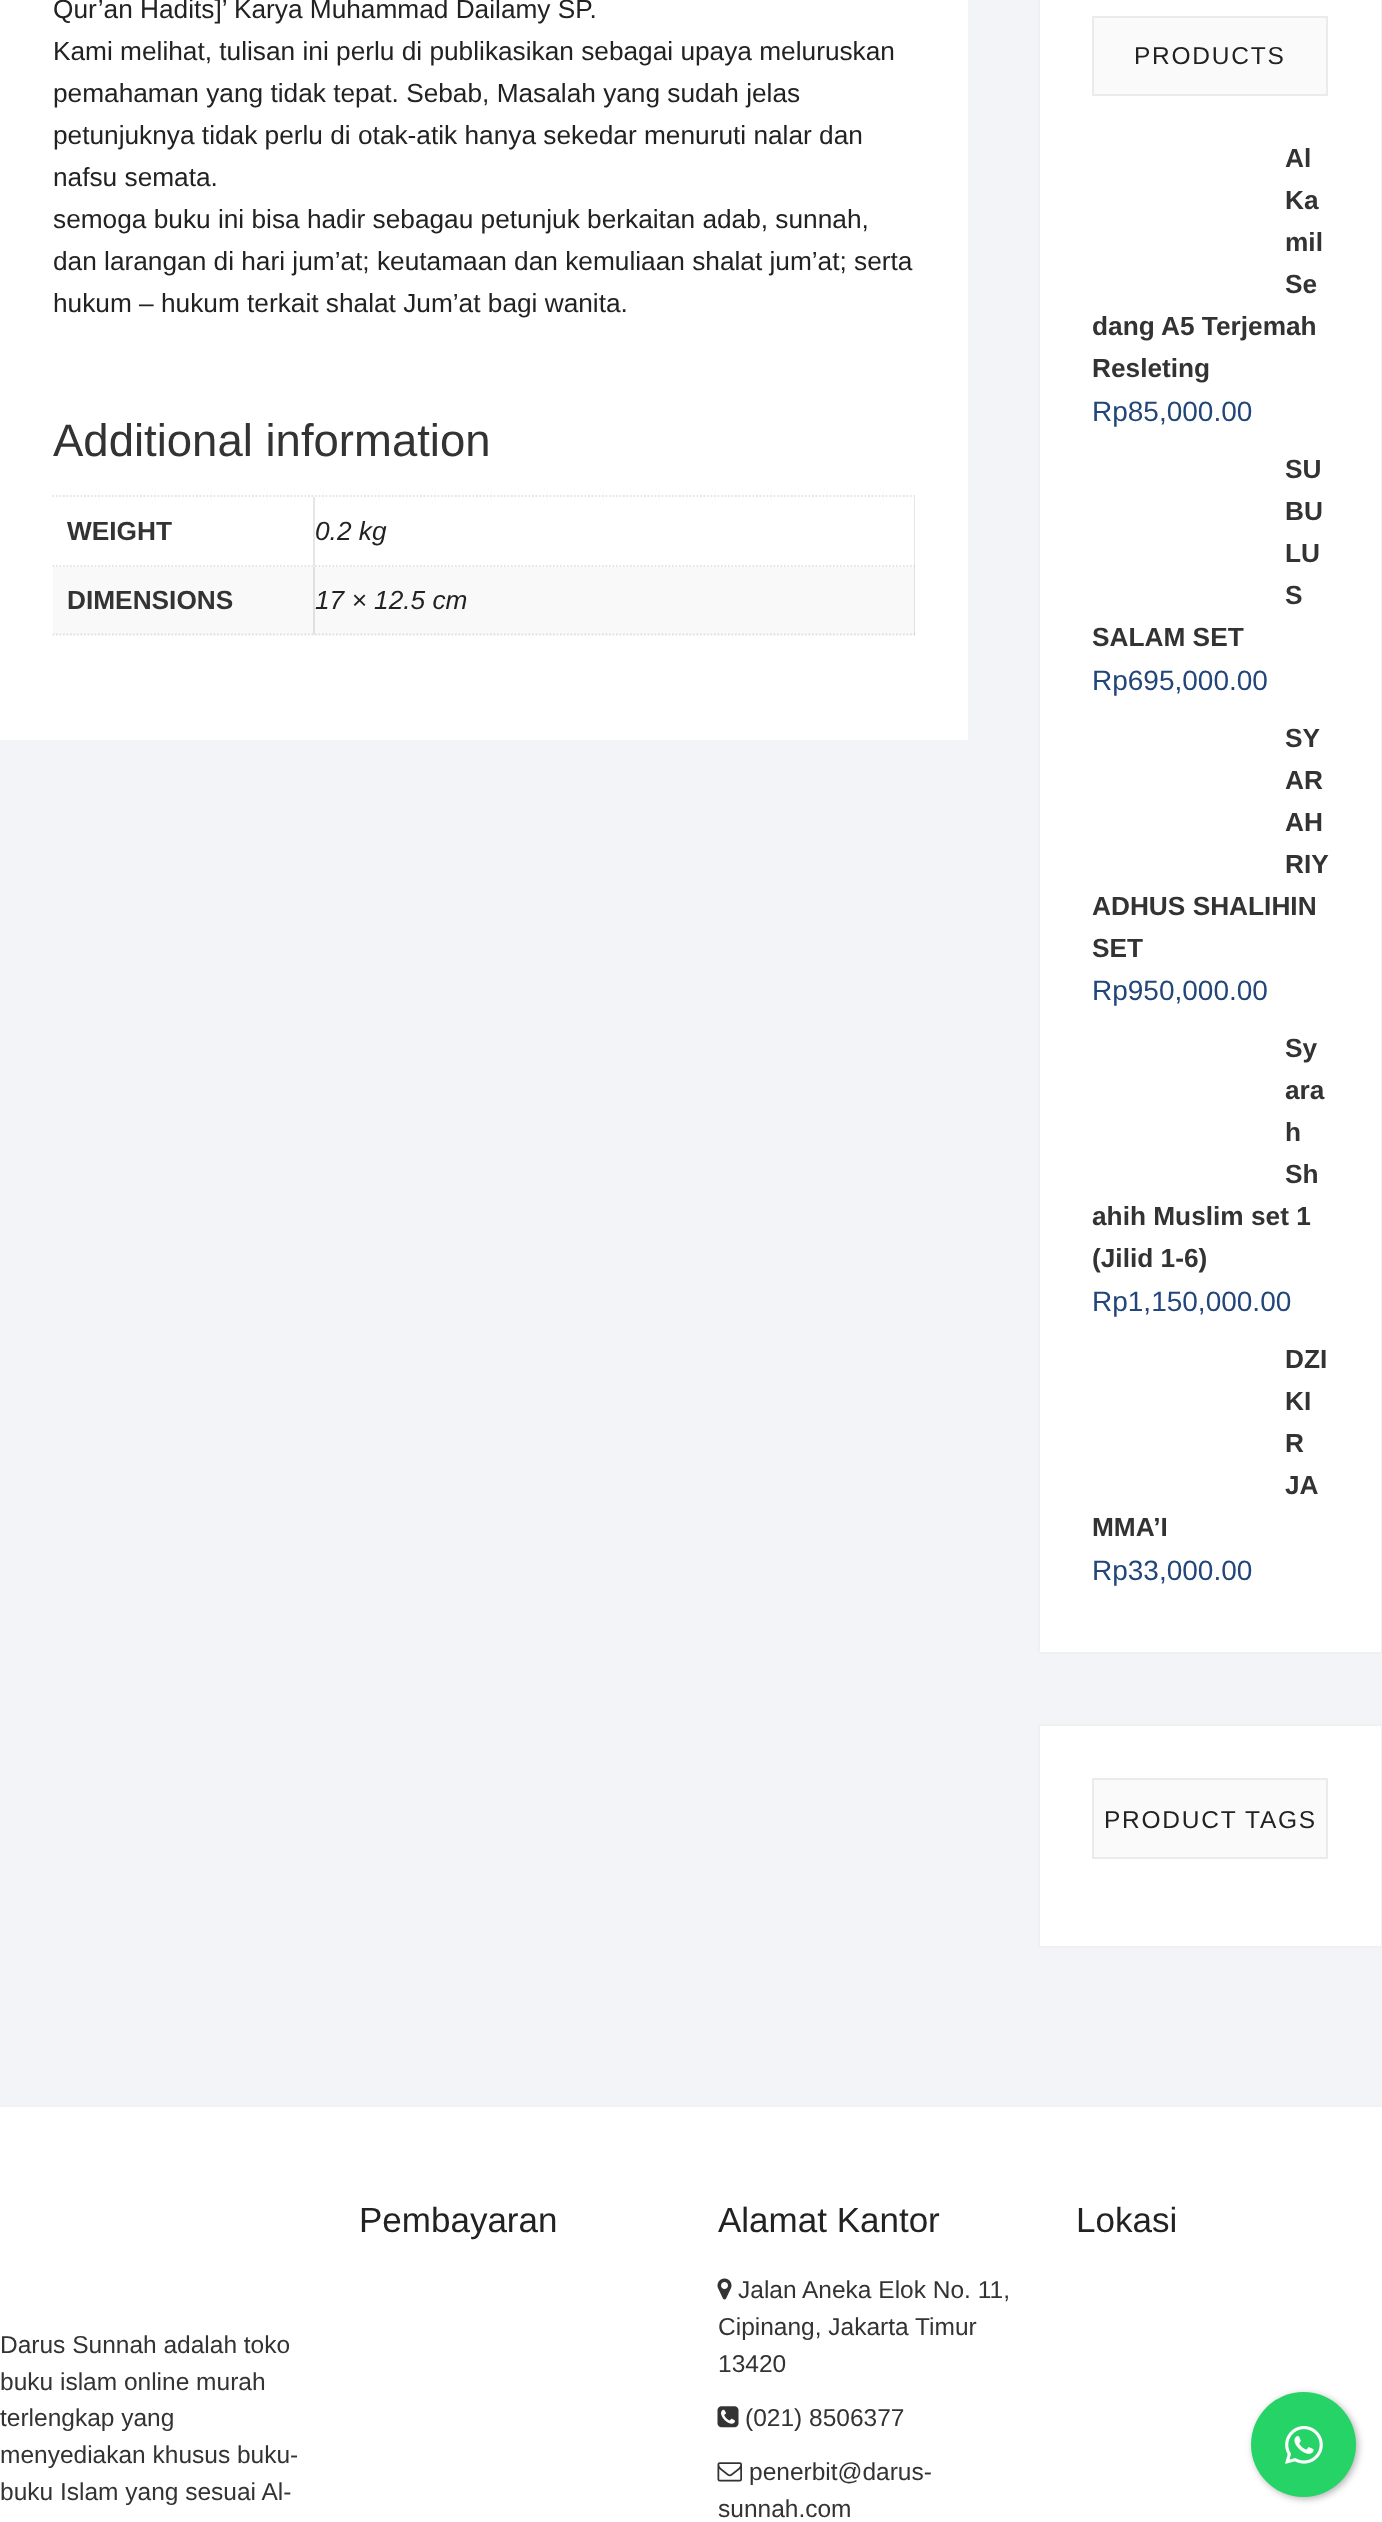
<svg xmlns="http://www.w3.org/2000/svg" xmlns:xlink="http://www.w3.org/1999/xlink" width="1382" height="2522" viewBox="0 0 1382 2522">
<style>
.cls-1{font:26.25px Liberation Sans;fill:#222222}
.cls-2{font:45.5px Liberation Sans;fill:#333333}
.cls-3{font:bold 26.25px Liberation Sans;fill:#333333}
.cls-4{font:italic 26.25px Liberation Sans;fill:#222222}
.cls-5{font:24.5px Liberation Sans;letter-spacing:1.75px;fill:#222222}
.cls-6{font:28px Liberation Sans;fill:#22467a}
.cls-7{font:35px Liberation Sans;fill:#222222}
.cls-8{font:24.5px Liberation Sans;fill:#333333}
</style>
<rect width="100%" height="100%" fill="#f3f4f8"/>
<rect fill="#ffffff" x="0" y="0" width="968" height="740"/>
<path fill="none" stroke="#e6e6e6" stroke-width="1.8" stroke-dasharray="1.75 1.75" d="M52.5 496H915"/>
<path fill="#e6e6e6" d="M315 497V567L313 565V497Z"/>
<path fill="none" stroke="#e6e6e6" stroke-width="1.8" stroke-dasharray="1.75 1.75" d="M52.5 566H315"/>
<path fill="#e6e6e6" d="M915 497V567L914 565V497Z"/>
<path fill="none" stroke="#000000" stroke-opacity="0.1" stroke-width="1.8" stroke-dasharray="1.75 1.75" d="M315 566H915"/>
<rect fill="#f9f9f9" x="53" y="567" width="862" height="68"/>
<path fill="#e0e0e0" d="M315 567V635L313 634V567Z"/>
<path fill="none" stroke="#000000" stroke-opacity="0.1" stroke-width="1.8" stroke-dasharray="1.75 1.75" d="M52.5 634.5H315"/>
<path fill="#e0e0e0" d="M915 567V635L914 634V567Z"/>
<path fill="none" stroke="#000000" stroke-opacity="0.1" stroke-width="1.8" stroke-dasharray="1.75 1.75" d="M315 634.5H915"/>
<rect fill="#ffffff" stroke="#f0f0f0" stroke-width="2" x="1039" y="-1" width="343" height="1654"/>
<rect fill="#fafafa" stroke="#ebebeb" stroke-width="2" x="1093" y="17" width="234" height="78"/>
<rect fill="#ffffff" stroke="#f0f0f0" stroke-width="2" x="1039" y="1725" width="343" height="222"/>
<rect fill="#fafafa" stroke="#ebebeb" stroke-width="2" x="1093" y="1779" width="234" height="79"/>
<rect fill="#ffffff" x="0" y="2107" width="1382" height="415"/>
<rect fill="#f2f2f2" x="0" y="2105" width="1382" height="2"/>
<image xlink:href="image0.png" x="717" y="2278" width="15" height="22"/>
<image xlink:href="image1.png" x="717" y="2406" width="22" height="22"/>
<image xlink:href="image2.png" x="717" y="2462" width="25" height="20"/>
<rect fill="#000000" fill-opacity="0.3" filter="blur(3.5px)" x="1253" y="2394" width="105" height="105" rx="52.5"/>
<circle fill="#25d366" cx="1303.5" cy="2444.5" r="52.5"/>
<image xlink:href="image3.png" x="1285" y="2426" width="38" height="38"/>
<text class="cls-1"><tspan x="53" y="18">Qur’an Hadits]’ Karya Muhammad Dailamy SP.</tspan><tspan x="53" y="60">Kami melihat, tulisan ini perlu di publikasikan sebagai upaya meluruskan</tspan><tspan x="53" y="102">pemahaman yang tidak tepat. Sebab, Masalah yang sudah jelas</tspan><tspan x="53" y="144">petunjuknya tidak perlu di otak-atik hanya sekedar menuruti nalar dan</tspan><tspan x="53" y="186">nafsu semata.</tspan><tspan x="53" y="228">semoga buku ini bisa hadir sebagau petunjuk berkaitan adab, sunnah,</tspan><tspan x="53" y="270">dan larangan di hari jum’at; keutamaan dan kemuliaan shalat jum’at; serta</tspan><tspan x="53" y="312">hukum – hukum terkait shalat Jum’at bagi wanita.</tspan></text>
<text class="cls-2" x="53" y="456">Additional information</text>
<text class="cls-3" x="67" y="540">WEIGHT</text>
<text class="cls-4" x="315" y="540">0.2 kg</text>
<text class="cls-3" x="67" y="609">DIMENSIONS</text>
<text class="cls-4" x="315" y="609">17 × 12.5 cm</text>
<text class="cls-5" x="1134" y="64">PRODUCTS</text>
<text class="cls-3"><tspan x="1285" y="167">Al</tspan><tspan x="1285" y="209">Ka</tspan><tspan x="1285" y="251">mil</tspan><tspan x="1285" y="293">Se</tspan></text>
<text class="cls-3"><tspan x="1092" y="335">dang A5 Terjemah</tspan><tspan x="1092" y="377">Resleting</tspan></text>
<text class="cls-6" x="1092" y="421">Rp85,000.00</text>
<text class="cls-3"><tspan x="1285" y="478">SU</tspan><tspan x="1285" y="520">BU</tspan><tspan x="1285" y="562">LU</tspan><tspan x="1285" y="604">S</tspan></text>
<text class="cls-3" x="1092" y="646">SALAM SET</text>
<text class="cls-6" x="1092" y="690">Rp695,000.00</text>
<text class="cls-3"><tspan x="1285" y="747">SY</tspan><tspan x="1285" y="789">AR</tspan><tspan x="1285" y="831">AH</tspan><tspan x="1285" y="873">RIY</tspan></text>
<text class="cls-3"><tspan x="1092" y="915">ADHUS SHALIHIN</tspan><tspan x="1092" y="957">SET</tspan></text>
<text class="cls-6" x="1092" y="1000">Rp950,000.00</text>
<text class="cls-3"><tspan x="1285" y="1057">Sy</tspan><tspan x="1285" y="1099">ara</tspan><tspan x="1285" y="1141">h</tspan><tspan x="1285" y="1183">Sh</tspan></text>
<text class="cls-3"><tspan x="1092" y="1225">ahih Muslim set 1</tspan><tspan x="1092" y="1267">(Jilid 1-6)</tspan></text>
<text class="cls-6" x="1092" y="1311">Rp1,150,000.00</text>
<text class="cls-3"><tspan x="1285" y="1368">DZI</tspan><tspan x="1285" y="1410">KI</tspan><tspan x="1285" y="1452">R</tspan><tspan x="1285" y="1494">JA</tspan></text>
<text class="cls-3" x="1092" y="1536">MMA’I</text>
<text class="cls-6" x="1092" y="1580">Rp33,000.00</text>
<text class="cls-5" x="1104" y="1828">PRODUCT TAGS</text>
<text class="cls-7" x="359" y="2232">Pembayaran</text>
<text class="cls-7" x="718" y="2232">Alamat Kantor</text>
<text class="cls-8" x="738" y="2298">Jalan Aneka Elok No. 11,</text>
<text class="cls-8"><tspan x="718" y="2335">Cipinang, Jakarta Timur</tspan><tspan x="718" y="2372">13420</tspan></text>
<text class="cls-8" x="745" y="2426">(021) 8506377</text>
<text class="cls-8" x="749" y="2480">penerbit@darus-</text>
<text class="cls-8" x="718" y="2517">sunnah.com</text>
<text class="cls-7" x="1076" y="2232">Lokasi</text>
<text class="cls-8"><tspan x="0" y="2353">Darus Sunnah adalah toko</tspan><tspan x="0" y="2390">buku islam online murah</tspan><tspan x="0" y="2426">terlengkap yang</tspan><tspan x="0" y="2463">menyediakan khusus buku-</tspan><tspan x="0" y="2500">buku Islam yang sesuai Al-</tspan></text>
</svg>
